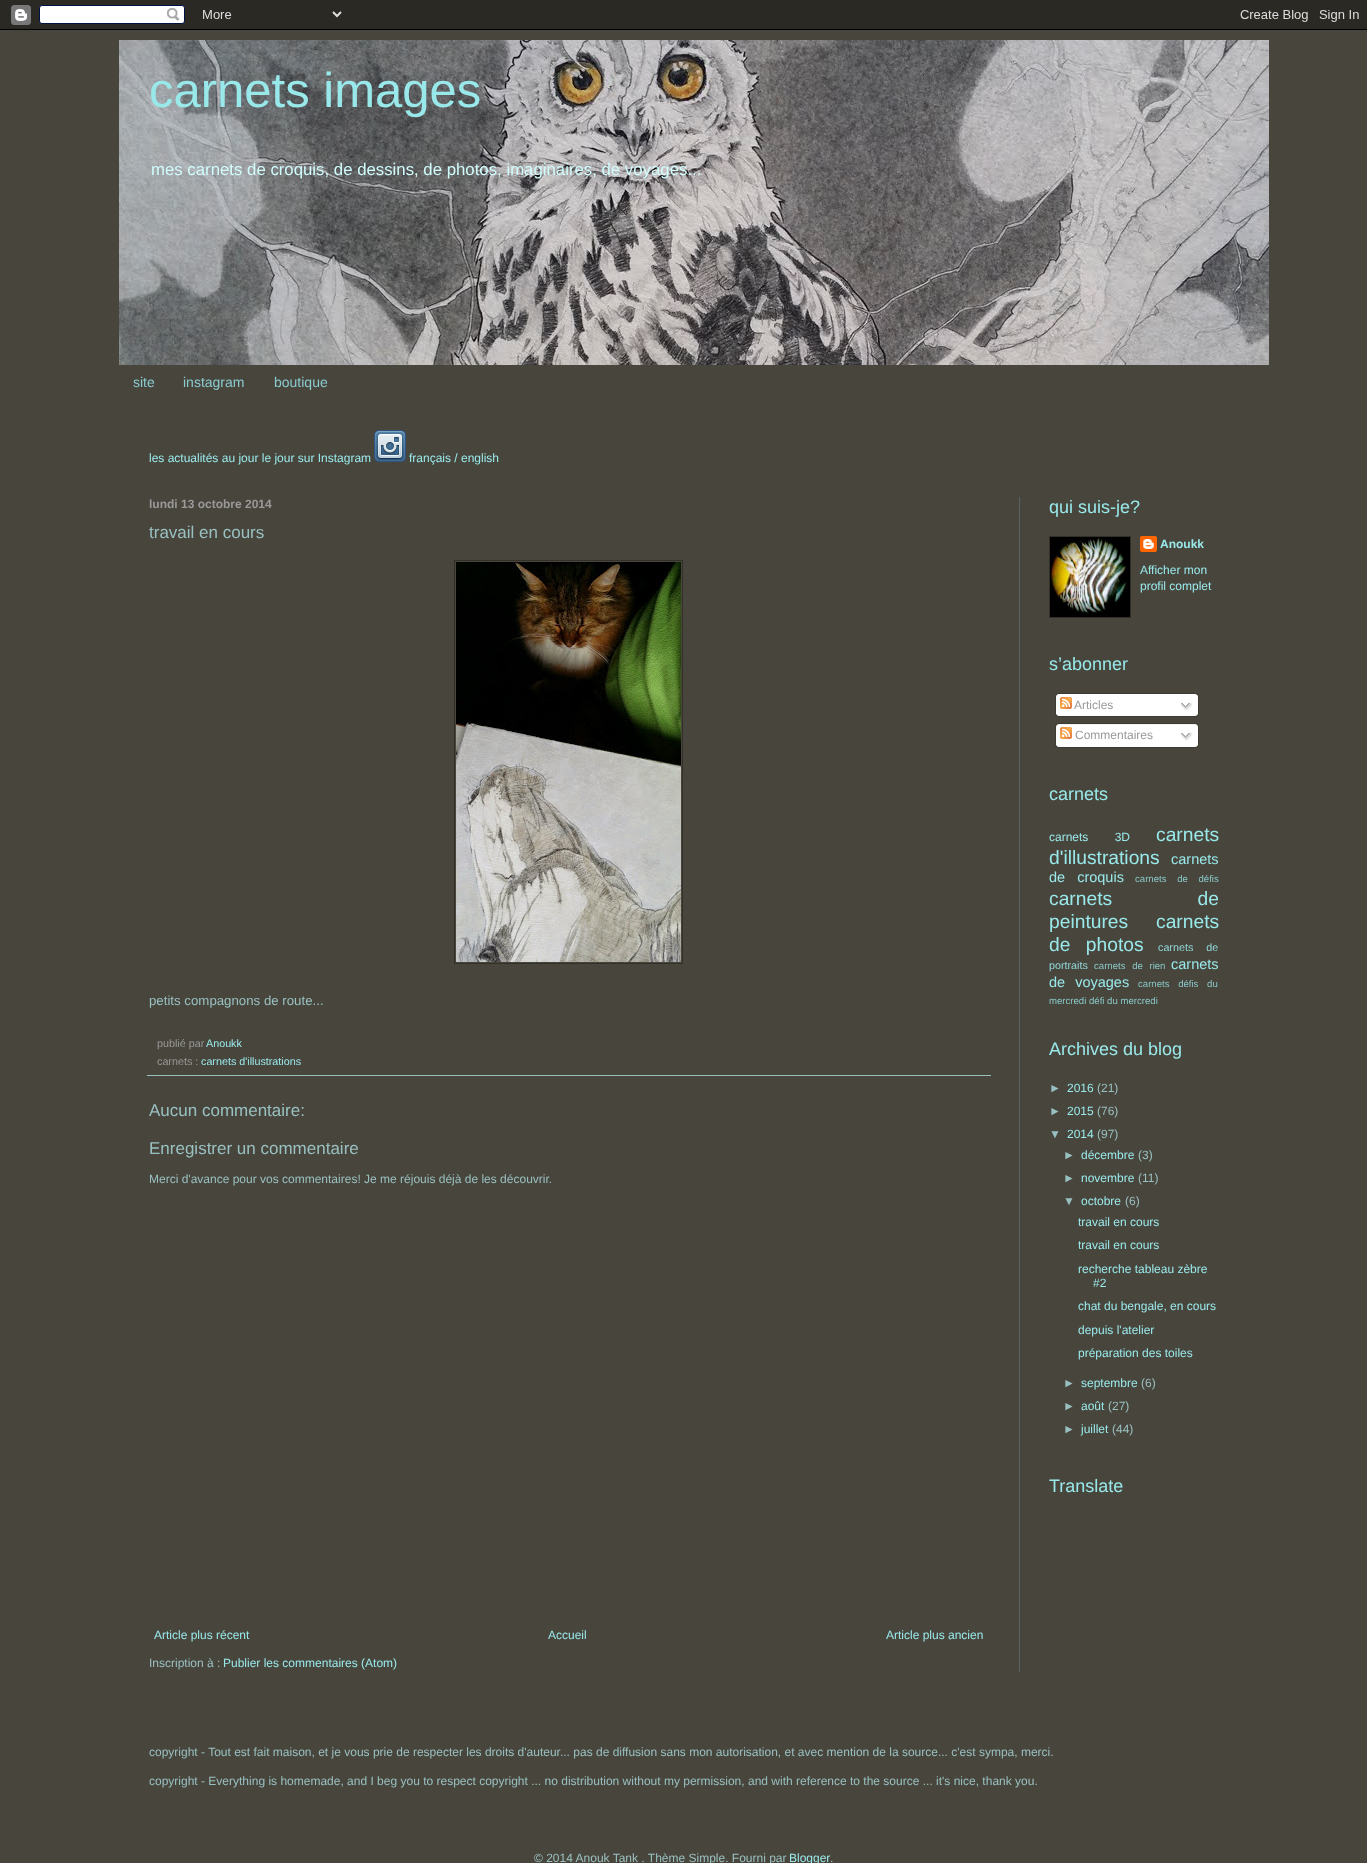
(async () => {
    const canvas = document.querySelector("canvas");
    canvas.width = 1367;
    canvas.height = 1863;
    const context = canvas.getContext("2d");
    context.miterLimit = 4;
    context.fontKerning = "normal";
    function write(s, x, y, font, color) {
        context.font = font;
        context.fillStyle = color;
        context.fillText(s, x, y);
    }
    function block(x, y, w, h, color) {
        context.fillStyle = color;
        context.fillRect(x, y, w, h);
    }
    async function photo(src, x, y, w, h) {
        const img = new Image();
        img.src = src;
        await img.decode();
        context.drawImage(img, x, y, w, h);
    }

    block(0, 0, 1367, 1863, "rgb(72, 69, 60)");
    await photo("media/1.png", 0, 0, 1367, 30);
    await photo("media/2.png", 119, 40, 1150, 325);
    write("carnets images", 149, 107, "49px Liberation Sans", "rgb(153, 233, 235)");
    write("mes carnets de croquis, de dessins, de photos, imaginaires, de voyages...", 151, 175, "16.8px Liberation Sans", "rgb(208, 252, 252)");
    write("site", 133, 387, "14px Liberation Sans", "rgb(138, 203, 208)");
    write("instagram", 183, 387, "14px Liberation Sans", "rgb(138, 203, 208)");
    write("boutique", 274, 387, "14px Liberation Sans", "rgb(138, 203, 208)");
    write("les actualités au jour le jour sur Instagram", 149, 462, "12px Liberation Sans", "rgb(153, 233, 235)");
    await photo("media/3.png", 374, 430, 32, 32);
    write("français / english", 409, 462, "12px Liberation Sans", "rgb(153, 233, 235)");
    block(1019, 497, 1, 1175, "rgb(82, 102, 104)");
    write("lundi 13 octobre 2014", 149, 508, "bold 12px Liberation Sans", "rgb(153, 153, 153)");
    write("travail en cours", 149, 538, "17px Liberation Sans", "rgb(153, 192, 193)");
    context.strokeStyle = "rgb(51, 48, 41)";
    context.strokeRect(454.5, 560.5, 228, 403);
    await photo("media/4.png", 456, 562, 225, 400);
    write("petits compagnons de route...", 149, 1005, "13.25px Liberation Sans", "rgb(153, 192, 193)");
    block(147, 1075, 844, 1, "rgb(153, 192, 193)");
    write("publié par", 157, 1047, "10.75px Liberation Sans", "rgb(153, 153, 153)");
    write("Anoukk", 206, 1047, "10.75px Liberation Sans", "rgb(153, 233, 235)");
    write("carnets :", 157, 1065, "10.75px Liberation Sans", "rgb(153, 153, 153)");
    write("carnets d'illustrations", 201, 1065, "10.75px Liberation Sans", "rgb(153, 233, 235)");
    write("Aucun commentaire:", 149, 1116, "17px Liberation Sans", "rgb(153, 192, 193)");
    write("Enregistrer un commentaire", 149, 1154, "17px Liberation Sans", "rgb(153, 192, 193)");
    write("Merci d'avance pour vos commentaires! Je me réjouis déjà de les découvrir.", 149, 1183, "12px Liberation Sans", "rgb(153, 192, 193)");
    write("Article plus récent", 154, 1639, "12px Liberation Sans", "rgb(153, 233, 235)");
    write("Accueil", 548, 1639, "12px Liberation Sans", "rgb(153, 233, 235)");
    write("Article plus ancien", 886, 1639, "12px Liberation Sans", "rgb(153, 233, 235)");
    write("Inscription à :", 149, 1667, "12px Liberation Sans", "rgb(153, 192, 193)");
    write("Publier les commentaires (Atom)", 223, 1667, "12px Liberation Sans", "rgb(153, 233, 235)");
    write("qui suis-je?", 1049, 513, "18px Liberation Sans", "rgb(153, 233, 235)");
    context.strokeRect(1049.5, 536.5, 81, 81);
    await photo("media/5.png", 1050, 537, 80, 80);
    await photo("media/6.png", 1140, 536, 17, 16);
    write("Anoukk", 1160, 548, "bold 12px Liberation Sans", "rgb(153, 233, 235)");
    write("Afficher mon", 1140, 574, "12px Liberation Sans", "rgb(153, 233, 235)");
    write("profil complet", 1140, 590, "12px Liberation Sans", "rgb(153, 233, 235)");
    write("s’abonner", 1049, 670, "18px Liberation Sans", "rgb(153, 233, 235)");
    await photo("media/7.png", 1055, 693, 144, 21);
    await photo("media/8.png", 1060, 697, 12, 12);
    write("Articles", 1074, 709, "12px Liberation Sans", "rgb(153, 153, 153)");
    await photo("media/9.png", 1180, 702, 13, 9);
    await photo("media/10.png", 1055, 714, 144, 3);
    await photo("media/11.png", 1055, 723, 144, 22);
    await photo("media/8.png", 1060, 727, 12, 12);
    write("Commentaires", 1075, 739, "12px Liberation Sans", "rgb(153, 153, 153)");
    await photo("media/9.png", 1180, 732, 13, 9);
    await photo("media/10.png", 1055, 745, 144, 3);
    write("carnets", 1049, 800, "18px Liberation Sans", "rgb(153, 233, 235)");
    context.wordSpacing = "23px";
    write("carnets 3D", 1049, 841, "12px Liberation Sans", "rgb(153, 233, 235)");
    context.wordSpacing = "0px";
    write("carnets", 1156, 841, "19.25px Liberation Sans", "rgb(153, 233, 235)");
    write("d'illustrations", 1049, 864, "19.25px Liberation Sans", "rgb(153, 233, 235)");
    write("carnets", 1171, 864, "14.5px Liberation Sans", "rgb(153, 233, 235)");
    context.wordSpacing = "8px";
    write("de croquis", 1049, 882, "14.5px Liberation Sans", "rgb(153, 233, 235)");
    write("carnets de défis", 1135, 882, "9.6px Liberation Sans", "rgb(137, 200, 200)");
    context.wordSpacing = "80px";
    write("carnets de", 1049, 905, "19.25px Liberation Sans", "rgb(153, 233, 235)");
    context.wordSpacing = "0px";
    write("peintures", 1049, 928, "19.25px Liberation Sans", "rgb(153, 233, 235)");
    write("carnets", 1156, 928, "19.25px Liberation Sans", "rgb(153, 233, 235)");
    context.wordSpacing = "10px";
    write("de photos", 1049, 951, "19.25px Liberation Sans", "rgb(153, 233, 235)");
    write("carnets de", 1158, 951, "10.75px Liberation Sans", "rgb(145, 217, 218)");
    context.wordSpacing = "0px";
    write("portraits", 1049, 969, "10.75px Liberation Sans", "rgb(145, 217, 218)");
    context.wordSpacing = "4px";
    write("carnets de rien", 1094, 969, "9.6px Liberation Sans", "rgb(137, 200, 200)");
    context.wordSpacing = "0px";
    write("carnets", 1171, 969, "14.5px Liberation Sans", "rgb(153, 233, 235)");
    context.wordSpacing = "6px";
    write("de voyages", 1049, 987, "14.5px Liberation Sans", "rgb(153, 233, 235)");
    write("carnets défis du", 1138, 987, "9.6px Liberation Sans", "rgb(137, 200, 200)");
    context.wordSpacing = "0px";
    write("mercredi défi du mercredi", 1049, 1004, "9.6px Liberation Sans", "rgb(137, 200, 200)");
    write("Archives du blog", 1049, 1055, "18px Liberation Sans", "rgb(153, 233, 235)");
    write("►", 1049, 1092, "12px Liberation Sans", "rgb(153, 192, 193)");
    write("2016", 1067, 1092, "12px Liberation Sans", "rgb(153, 233, 235)");
    write("(21)", 1097, 1092, "12px Liberation Sans", "rgb(153, 192, 193)");
    write("►", 1049, 1115, "12px Liberation Sans", "rgb(153, 192, 193)");
    write("2015", 1067, 1115, "12px Liberation Sans", "rgb(153, 233, 235)");
    write("(76)", 1097, 1115, "12px Liberation Sans", "rgb(153, 192, 193)");
    write("▼", 1049, 1138, "12px Liberation Sans", "rgb(153, 192, 193)");
    write("2014", 1067, 1138, "12px Liberation Sans", "rgb(153, 233, 235)");
    write("(97)", 1097, 1138, "12px Liberation Sans", "rgb(153, 192, 193)");
    write("►", 1063, 1159, "12px Liberation Sans", "rgb(153, 192, 193)");
    write("décembre", 1081, 1159, "12px Liberation Sans", "rgb(153, 233, 235)");
    write("(3)", 1138, 1159, "12px Liberation Sans", "rgb(153, 192, 193)");
    write("►", 1063, 1182, "12px Liberation Sans", "rgb(153, 192, 193)");
    write("novembre", 1081, 1182, "12px Liberation Sans", "rgb(153, 233, 235)");
    write("(11)", 1138, 1182, "12px Liberation Sans", "rgb(153, 192, 193)");
    write("▼", 1063, 1205, "12px Liberation Sans", "rgb(153, 192, 193)");
    write("octobre", 1081, 1205, "12px Liberation Sans", "rgb(153, 233, 235)");
    write("(6)", 1125, 1205, "12px Liberation Sans", "rgb(153, 192, 193)");
    write("travail en cours", 1078, 1226, "12px Liberation Sans", "rgb(153, 233, 235)");
    write("travail en cours", 1078, 1249, "12px Liberation Sans", "rgb(153, 233, 235)");
    write("recherche tableau zèbre", 1078, 1273, "12px Liberation Sans", "rgb(153, 233, 235)");
    write("#2", 1093, 1287, "12px Liberation Sans", "rgb(153, 233, 235)");
    write("chat du bengale, en cours", 1078, 1310, "12px Liberation Sans", "rgb(153, 233, 235)");
    write("depuis l'atelier", 1078, 1334, "12px Liberation Sans", "rgb(153, 233, 235)");
    write("préparation des toiles", 1078, 1357, "12px Liberation Sans", "rgb(153, 233, 235)");
    write("►", 1063, 1387, "12px Liberation Sans", "rgb(153, 192, 193)");
    write("septembre", 1081, 1387, "12px Liberation Sans", "rgb(153, 233, 235)");
    write("(6)", 1141, 1387, "12px Liberation Sans", "rgb(153, 192, 193)");
    write("►", 1063, 1410, "12px Liberation Sans", "rgb(153, 192, 193)");
    write("août", 1081, 1410, "12px Liberation Sans", "rgb(153, 233, 235)");
    write("(27)", 1108, 1410, "12px Liberation Sans", "rgb(153, 192, 193)");
    write("►", 1063, 1433, "12px Liberation Sans", "rgb(153, 192, 193)");
    write("juillet", 1081, 1433, "12px Liberation Sans", "rgb(153, 233, 235)");
    write("(44)", 1112, 1433, "12px Liberation Sans", "rgb(153, 192, 193)");
    write("Translate", 1049, 1492, "18px Liberation Sans", "rgb(153, 233, 235)");
    write("copyright - Tout est fait maison, et je vous prie de respecter les droits d'auteur... pas de diffusion sans mon autorisation, et avec mention de la source... c'est sympa, merci.", 149, 1756, "12px Liberation Sans", "rgb(153, 192, 193)");
    write("copyright - Everything is homemade, and I beg you to respect copyright ... no distribution without my permission, and with reference to the source ... it's nice, thank you.", 149, 1785, "12px Liberation Sans", "rgb(153, 192, 193)");
    write("© 2014 Anouk Tank . Thème Simple. Fourni par", 534, 1862, "12px Liberation Sans", "rgb(153, 192, 193)");
    write("Blogger", 789, 1862, "12px Liberation Sans", "rgb(153, 233, 235)");
    write(".", 830, 1862, "12px Liberation Sans", "rgb(153, 192, 193)");
})();
